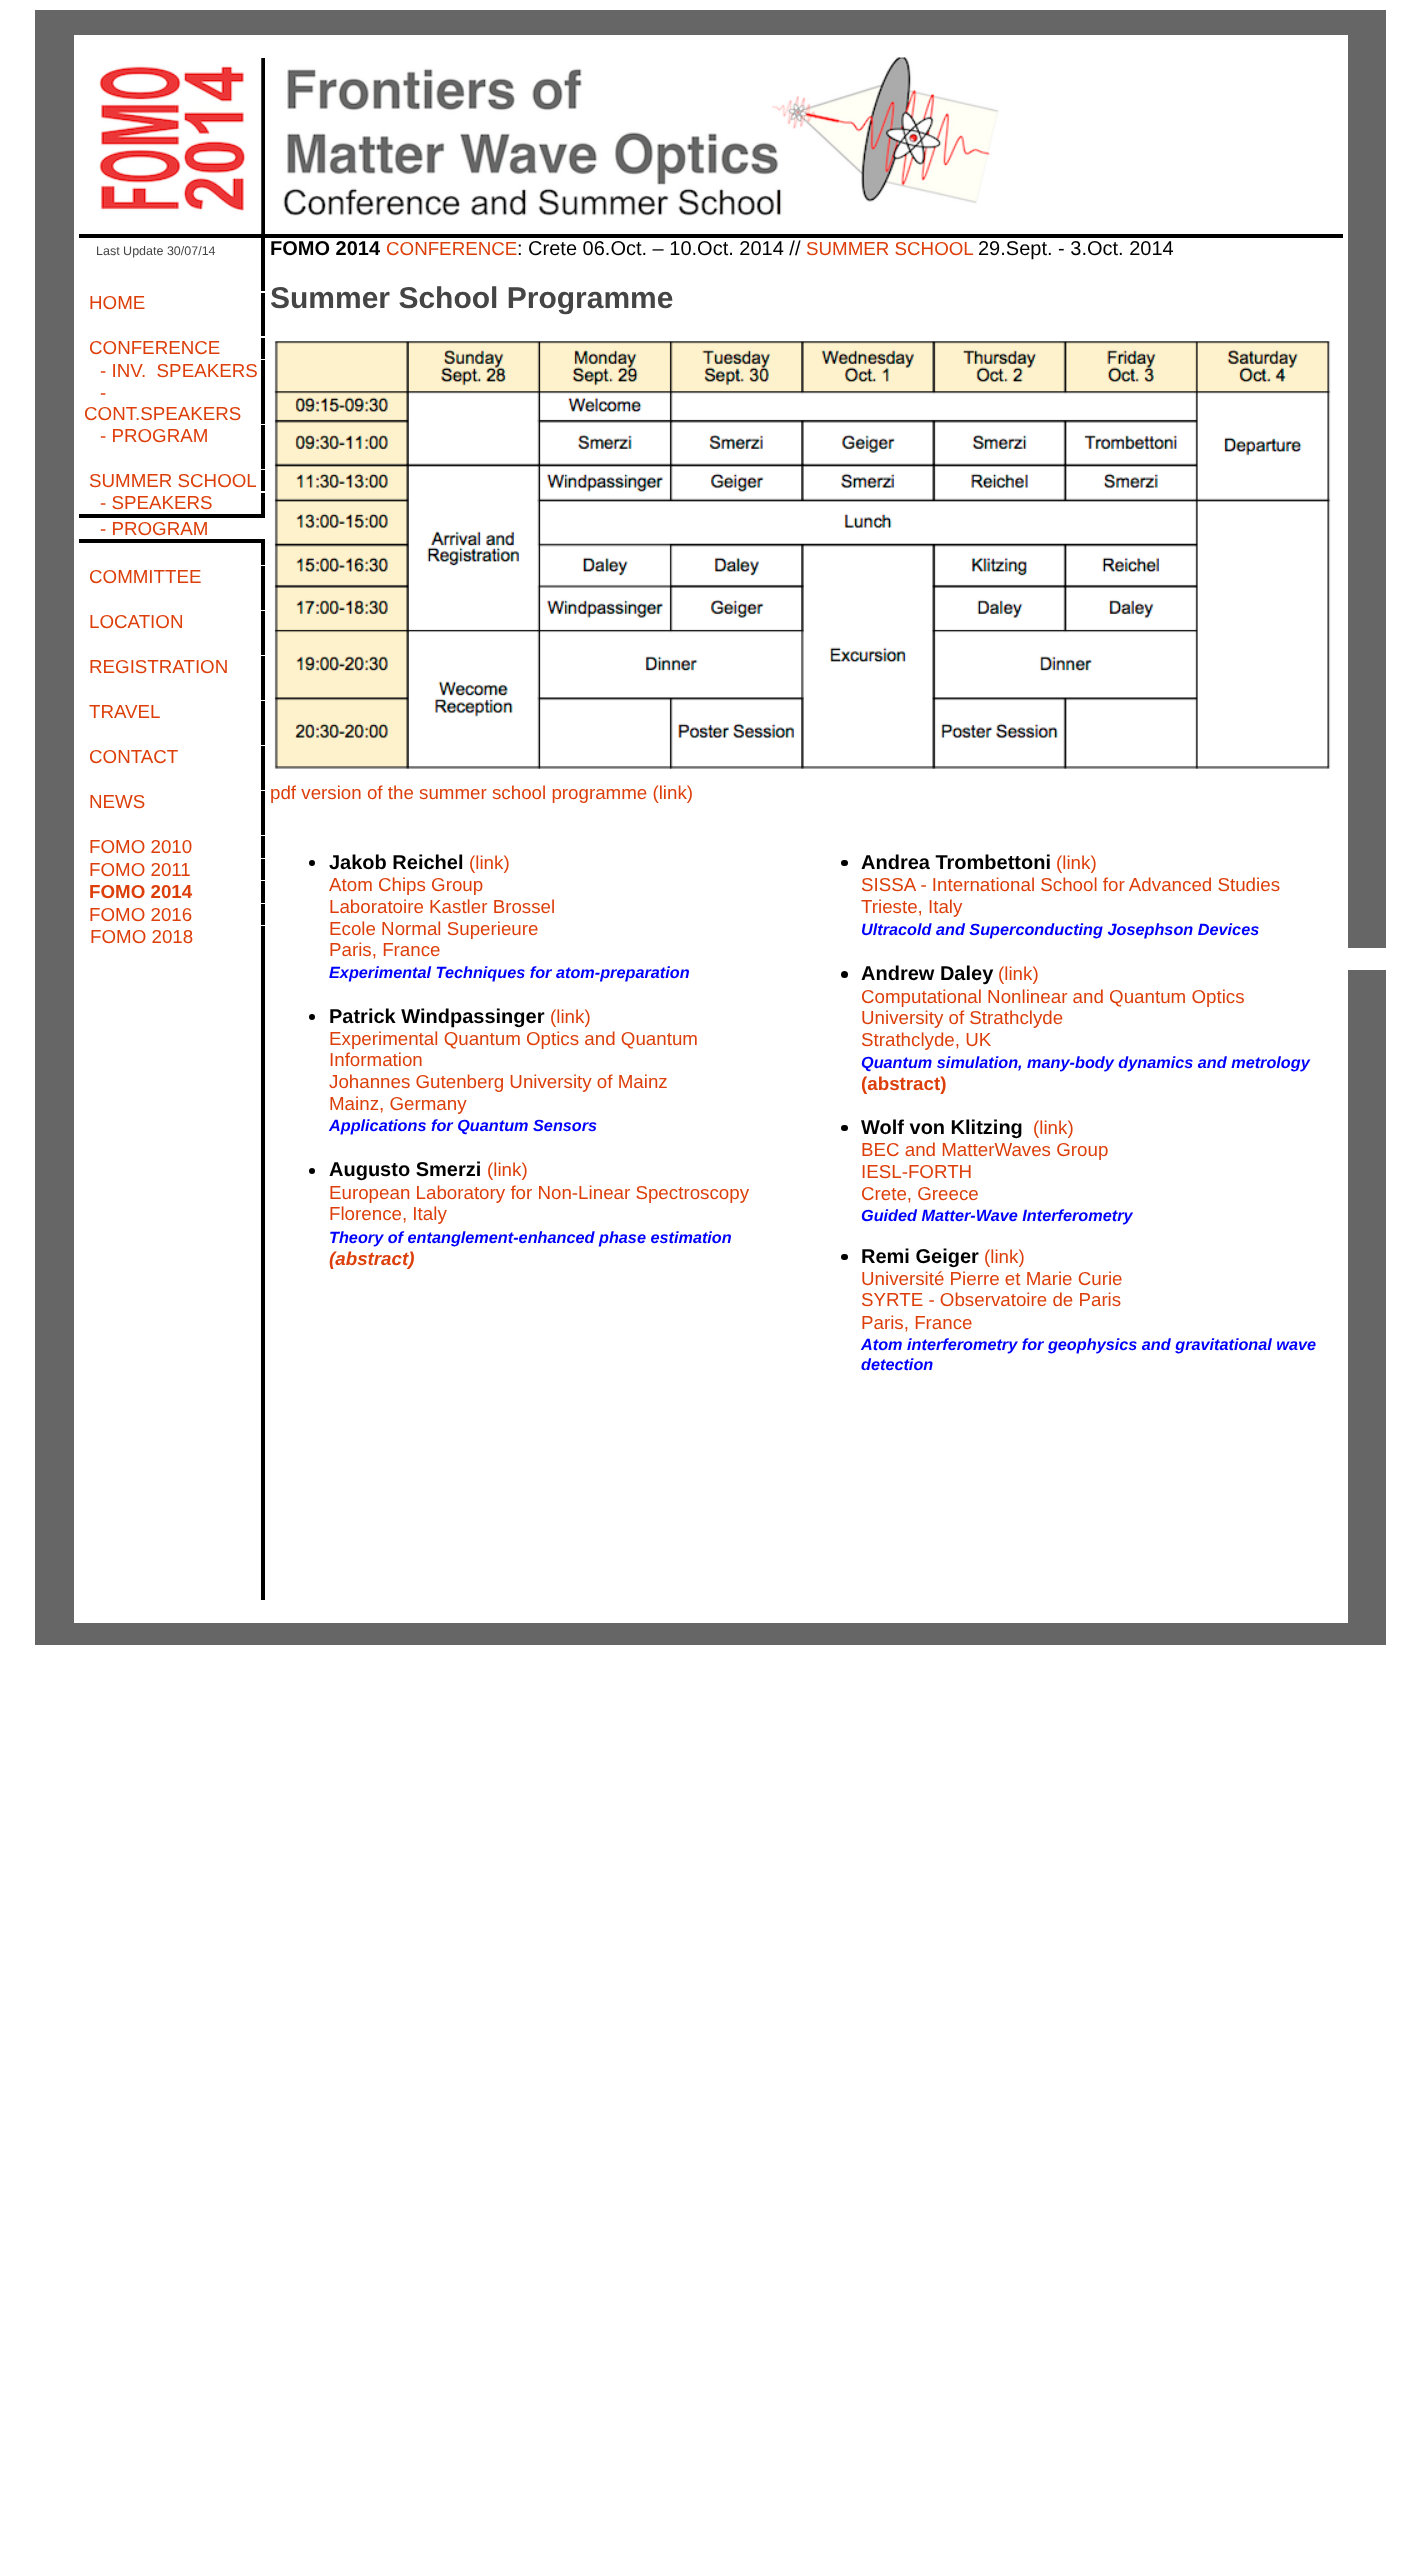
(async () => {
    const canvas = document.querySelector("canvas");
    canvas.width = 1421;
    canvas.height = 2575;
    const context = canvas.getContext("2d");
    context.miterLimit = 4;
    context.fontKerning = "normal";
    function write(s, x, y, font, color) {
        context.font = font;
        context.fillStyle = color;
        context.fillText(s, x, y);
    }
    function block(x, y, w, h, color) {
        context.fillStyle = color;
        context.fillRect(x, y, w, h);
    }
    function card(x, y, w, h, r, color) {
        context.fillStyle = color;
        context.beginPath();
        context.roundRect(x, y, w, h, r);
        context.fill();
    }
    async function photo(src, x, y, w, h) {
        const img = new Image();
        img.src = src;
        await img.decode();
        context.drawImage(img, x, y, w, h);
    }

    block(0, 0, 1421, 2575, "rgb(255, 255, 255)");
    block(35, 10, 1351, 25, "rgb(102, 102, 102)");
    block(35, 35, 39, 1588, "rgb(102, 102, 102)");
    block(1348, 35, 38, 913, "rgb(102, 102, 102)");
    await photo("media/1.png", 283, 57, 716, 159);
    block(261, 58, 4, 233, "rgb(0, 0, 0)");
    block(79, 234, 1264, 4, "rgb(0, 0, 0)");
    await photo("media/2.png", 99, 58, 163, 176);
    write("Last Update 30/07/14", 96, 255, "12.5px Liberation Sans", "rgb(69, 69, 69)");
    write("FOMO 2014", 270, 255, "bold 20px Liberation Sans", "rgb(0, 0, 0)");
    write("CONFERENCE", 386, 255, "18.75px Liberation Sans", "rgb(221, 63, 11)");
    write(": Crete 06.Oct. – 10.Oct. 2014 //", 517, 255, "20px Liberation Sans", "rgb(0, 0, 0)");
    write("SUMMER SCHOOL", 806, 255, "18.75px Liberation Sans", "rgb(221, 63, 11)");
    write("29.Sept. - 3.Oct. 2014", 978, 255, "20px Liberation Sans", "rgb(0, 0, 0)");
    write("Summer School Programme", 270, 308, "bold 30px Liberation Sans", "rgb(69, 69, 69)");
    await photo("media/3.png", 274, 341, 1057, 428);
    write("pdf version of the summer school programme (link)", 270, 799, "18.75px Liberation Sans", "rgb(221, 63, 11)");
    context.fillStyle = "rgb(0, 0, 0)";
    context.beginPath();
    context.arc(312, 863, 3, 0, Math.PI * 2);
    context.fill();
    write("Jakob Reichel", 329, 869, "bold 20px Liberation Sans", "rgb(0, 0, 0)");
    write("(link)", 469, 869, "18.75px Liberation Sans", "rgb(221, 63, 11)");
    write("Atom Chips Group", 329, 891, "18.75px Liberation Sans", "rgb(221, 63, 11)");
    write("Laboratoire Kastler Brossel", 329, 913, "18.75px Liberation Sans", "rgb(221, 63, 11)");
    write("Ecole Normal Superieure", 329, 935, "18.75px Liberation Sans", "rgb(221, 63, 11)");
    write("Paris, France", 329, 956, "18.75px Liberation Sans", "rgb(221, 63, 11)");
    write("Experimental Techniques for atom-preparation", 329, 978, "italic bold 16.25px Liberation Sans", "rgb(0, 0, 255)");
    context.fillStyle = "rgb(0, 0, 0)";
    context.beginPath();
    context.arc(312, 1017, 3, 0, Math.PI * 2);
    context.fill();
    write("Patrick Windpassinger", 329, 1023, "bold 20px Liberation Sans", "rgb(0, 0, 0)");
    write("(link)", 550, 1023, "18.75px Liberation Sans", "rgb(221, 63, 11)");
    write("Experimental Quantum Optics and Quantum", 329, 1045, "18.75px Liberation Sans", "rgb(221, 63, 11)");
    write("Information", 329, 1066, "18.75px Liberation Sans", "rgb(221, 63, 11)");
    write("Johannes Gutenberg University of Mainz", 329, 1088, "18.75px Liberation Sans", "rgb(221, 63, 11)");
    write("Mainz, Germany", 329, 1110, "18.75px Liberation Sans", "rgb(221, 63, 11)");
    write("Applications for Quantum Sensors", 329, 1131, "italic bold 16.25px Liberation Sans", "rgb(0, 0, 255)");
    context.fillStyle = "rgb(0, 0, 0)";
    context.beginPath();
    context.arc(312, 1171, 3, 0, Math.PI * 2);
    context.fill();
    write("Augusto Smerzi", 329, 1176, "bold 20px Liberation Sans", "rgb(0, 0, 0)");
    write("(link)", 487, 1176, "18.75px Liberation Sans", "rgb(221, 63, 11)");
    write("European Laboratory for Non-Linear Spectroscopy", 329, 1199, "18.75px Liberation Sans", "rgb(221, 63, 11)");
    write("Florence, Italy", 329, 1220, "18.75px Liberation Sans", "rgb(221, 63, 11)");
    write("Theory of entanglement-enhanced phase estimation", 329, 1243, "italic bold 16.25px Liberation Sans", "rgb(0, 0, 255)");
    write("(abstract)", 329, 1265, "italic bold 18.75px Liberation Sans", "rgb(221, 63, 11)");
    card(841, 860, 7, 6, 3, "rgb(0, 0, 0)");
    write("Andrea Trombettoni", 861, 869, "bold 20px Liberation Sans", "rgb(0, 0, 0)");
    write("(link)", 1056, 869, "18.75px Liberation Sans", "rgb(221, 63, 11)");
    write("SISSA - International School for Advanced Studies", 861, 891, "18.75px Liberation Sans", "rgb(221, 63, 11)");
    write("Trieste, Italy", 861, 913, "18.75px Liberation Sans", "rgb(221, 63, 11)");
    write("Ultracold and Superconducting Josephson Devices", 861, 935, "italic bold 16.25px Liberation Sans", "rgb(0, 0, 255)");
    context.fillStyle = "rgb(0, 0, 0)";
    context.beginPath();
    context.arc(844.5, 974.5, 3.5, 0, Math.PI * 2);
    context.fill();
    write("Andrew Daley", 861, 980, "bold 20px Liberation Sans", "rgb(0, 0, 0)");
    write("(link)", 998, 980, "18.75px Liberation Sans", "rgb(221, 63, 11)");
    write("Computational Nonlinear and Quantum Optics", 861, 1003, "18.75px Liberation Sans", "rgb(221, 63, 11)");
    write("University of Strathclyde", 861, 1024, "18.75px Liberation Sans", "rgb(221, 63, 11)");
    write("Strathclyde, UK", 861, 1046, "18.75px Liberation Sans", "rgb(221, 63, 11)");
    write("Quantum simulation, many-body dynamics and metrology", 861, 1068, "italic bold 16.25px Liberation Sans", "rgb(0, 0, 255)");
    write("(abstract)", 861, 1090, "bold 18.75px Liberation Sans", "rgb(221, 63, 11)");
    card(841, 1125, 7, 6, 3, "rgb(0, 0, 0)");
    write("Wolf von Klitzing", 861, 1134, "bold 20px Liberation Sans", "rgb(0, 0, 0)");
    write("(link)", 1033, 1134, "18.75px Liberation Sans", "rgb(221, 63, 11)");
    write("BEC and MatterWaves Group", 861, 1156, "18.75px Liberation Sans", "rgb(221, 63, 11)");
    write("IESL-FORTH", 861, 1178, "18.75px Liberation Sans", "rgb(221, 63, 11)");
    write("Crete, Greece", 861, 1200, "18.75px Liberation Sans", "rgb(221, 63, 11)");
    write("Guided Matter-Wave Interferometry", 861, 1221, "italic bold 16.25px Liberation Sans", "rgb(0, 0, 255)");
    card(841, 1254, 7, 6, 3, "rgb(0, 0, 0)");
    write("Remi Geiger", 861, 1263, "bold 20px Liberation Sans", "rgb(0, 0, 0)");
    write("(link)", 984, 1263, "18.75px Liberation Sans", "rgb(221, 63, 11)");
    write("Université Pierre et Marie Curie", 861, 1285, "18.75px Liberation Sans", "rgb(221, 63, 11)");
    write("SYRTE - Observatoire de Paris", 861, 1306, "18.75px Liberation Sans", "rgb(221, 63, 11)");
    write("Paris, France", 861, 1329, "18.75px Liberation Sans", "rgb(221, 63, 11)");
    write("Atom interferometry for geophysics and gravitational wave", 861, 1350, "italic bold 16.25px Liberation Sans", "rgb(0, 0, 255)");
    write("detection", 861, 1370, "italic bold 16.25px Liberation Sans", "rgb(0, 0, 255)");
    block(261, 293, 4, 43, "rgb(0, 0, 0)");
    write("HOME", 89, 309, "18.75px Liberation Sans", "rgb(221, 63, 11)");
    block(261, 338, 4, 21, "rgb(0, 0, 0)");
    write("CONFERENCE", 89, 354, "18.75px Liberation Sans", "rgb(221, 63, 11)");
    block(261, 360, 4, 64, "rgb(0, 0, 0)");
    write("- INV.  SPEAKERS", 100, 377, "18.75px Liberation Sans", "rgb(221, 63, 11)");
    write("-", 100, 399, "18.75px Liberation Sans", "rgb(221, 63, 11)");
    write("CONT.SPEAKERS", 84, 420, "18.75px Liberation Sans", "rgb(221, 63, 11)");
    block(261, 425, 4, 44, "rgb(0, 0, 0)");
    write("- PROGRAM", 100, 442, "18.75px Liberation Sans", "rgb(221, 63, 11)");
    block(261, 470, 4, 21, "rgb(0, 0, 0)");
    write("SUMMER SCHOOL", 89, 487, "18.75px Liberation Sans", "rgb(221, 63, 11)");
    block(261, 493, 4, 21, "rgb(0, 0, 0)");
    write("- SPEAKERS", 100, 509, "18.75px Liberation Sans", "rgb(221, 63, 11)");
    block(79, 514, 186, 4, "rgb(0, 0, 0)");
    block(79, 539, 186, 4, "rgb(0, 0, 0)");
    write("- PROGRAM", 100, 535, "18.75px Liberation Sans", "rgb(221, 63, 11)");
    block(261, 543, 4, 22, "rgb(0, 0, 0)");
    block(261, 566, 4, 44, "rgb(0, 0, 0)");
    write("COMMITTEE", 89, 583, "18.75px Liberation Sans", "rgb(221, 63, 11)");
    block(261, 611, 4, 44, "rgb(0, 0, 0)");
    write("LOCATION", 89, 628, "18.75px Liberation Sans", "rgb(221, 63, 11)");
    block(261, 656, 4, 44, "rgb(0, 0, 0)");
    write("REGISTRATION", 89, 673, "18.75px Liberation Sans", "rgb(221, 63, 11)");
    block(261, 701, 4, 44, "rgb(0, 0, 0)");
    write("TRAVEL", 89, 718, "18.75px Liberation Sans", "rgb(221, 63, 11)");
    block(261, 746, 4, 44, "rgb(0, 0, 0)");
    write("CONTACT", 89, 763, "18.75px Liberation Sans", "rgb(221, 63, 11)");
    block(261, 791, 4, 44, "rgb(0, 0, 0)");
    write("NEWS", 89, 808, "18.75px Liberation Sans", "rgb(221, 63, 11)");
    block(261, 836, 4, 22, "rgb(0, 0, 0)");
    write("FOMO 2010", 89, 853, "18.75px Liberation Sans", "rgb(221, 63, 11)");
    block(261, 859, 4, 21, "rgb(0, 0, 0)");
    write("FOMO 2011", 89, 876, "18.75px Liberation Sans", "rgb(221, 63, 11)");
    block(261, 881, 4, 22, "rgb(0, 0, 0)");
    write("FOMO 2014", 89, 898, "bold 18.75px Liberation Sans", "rgb(221, 63, 11)");
    block(261, 904, 4, 21, "rgb(0, 0, 0)");
    write("FOMO 2016", 89, 921, "18.75px Liberation Sans", "rgb(221, 63, 11)");
    block(261, 926, 4, 674, "rgb(0, 0, 0)");
    write("FOMO 2018", 90, 943, "18.75px Liberation Sans", "rgb(221, 63, 11)");
    block(1348, 970, 38, 653, "rgb(102, 102, 102)");
    block(35, 1623, 1351, 22, "rgb(102, 102, 102)");
})();
